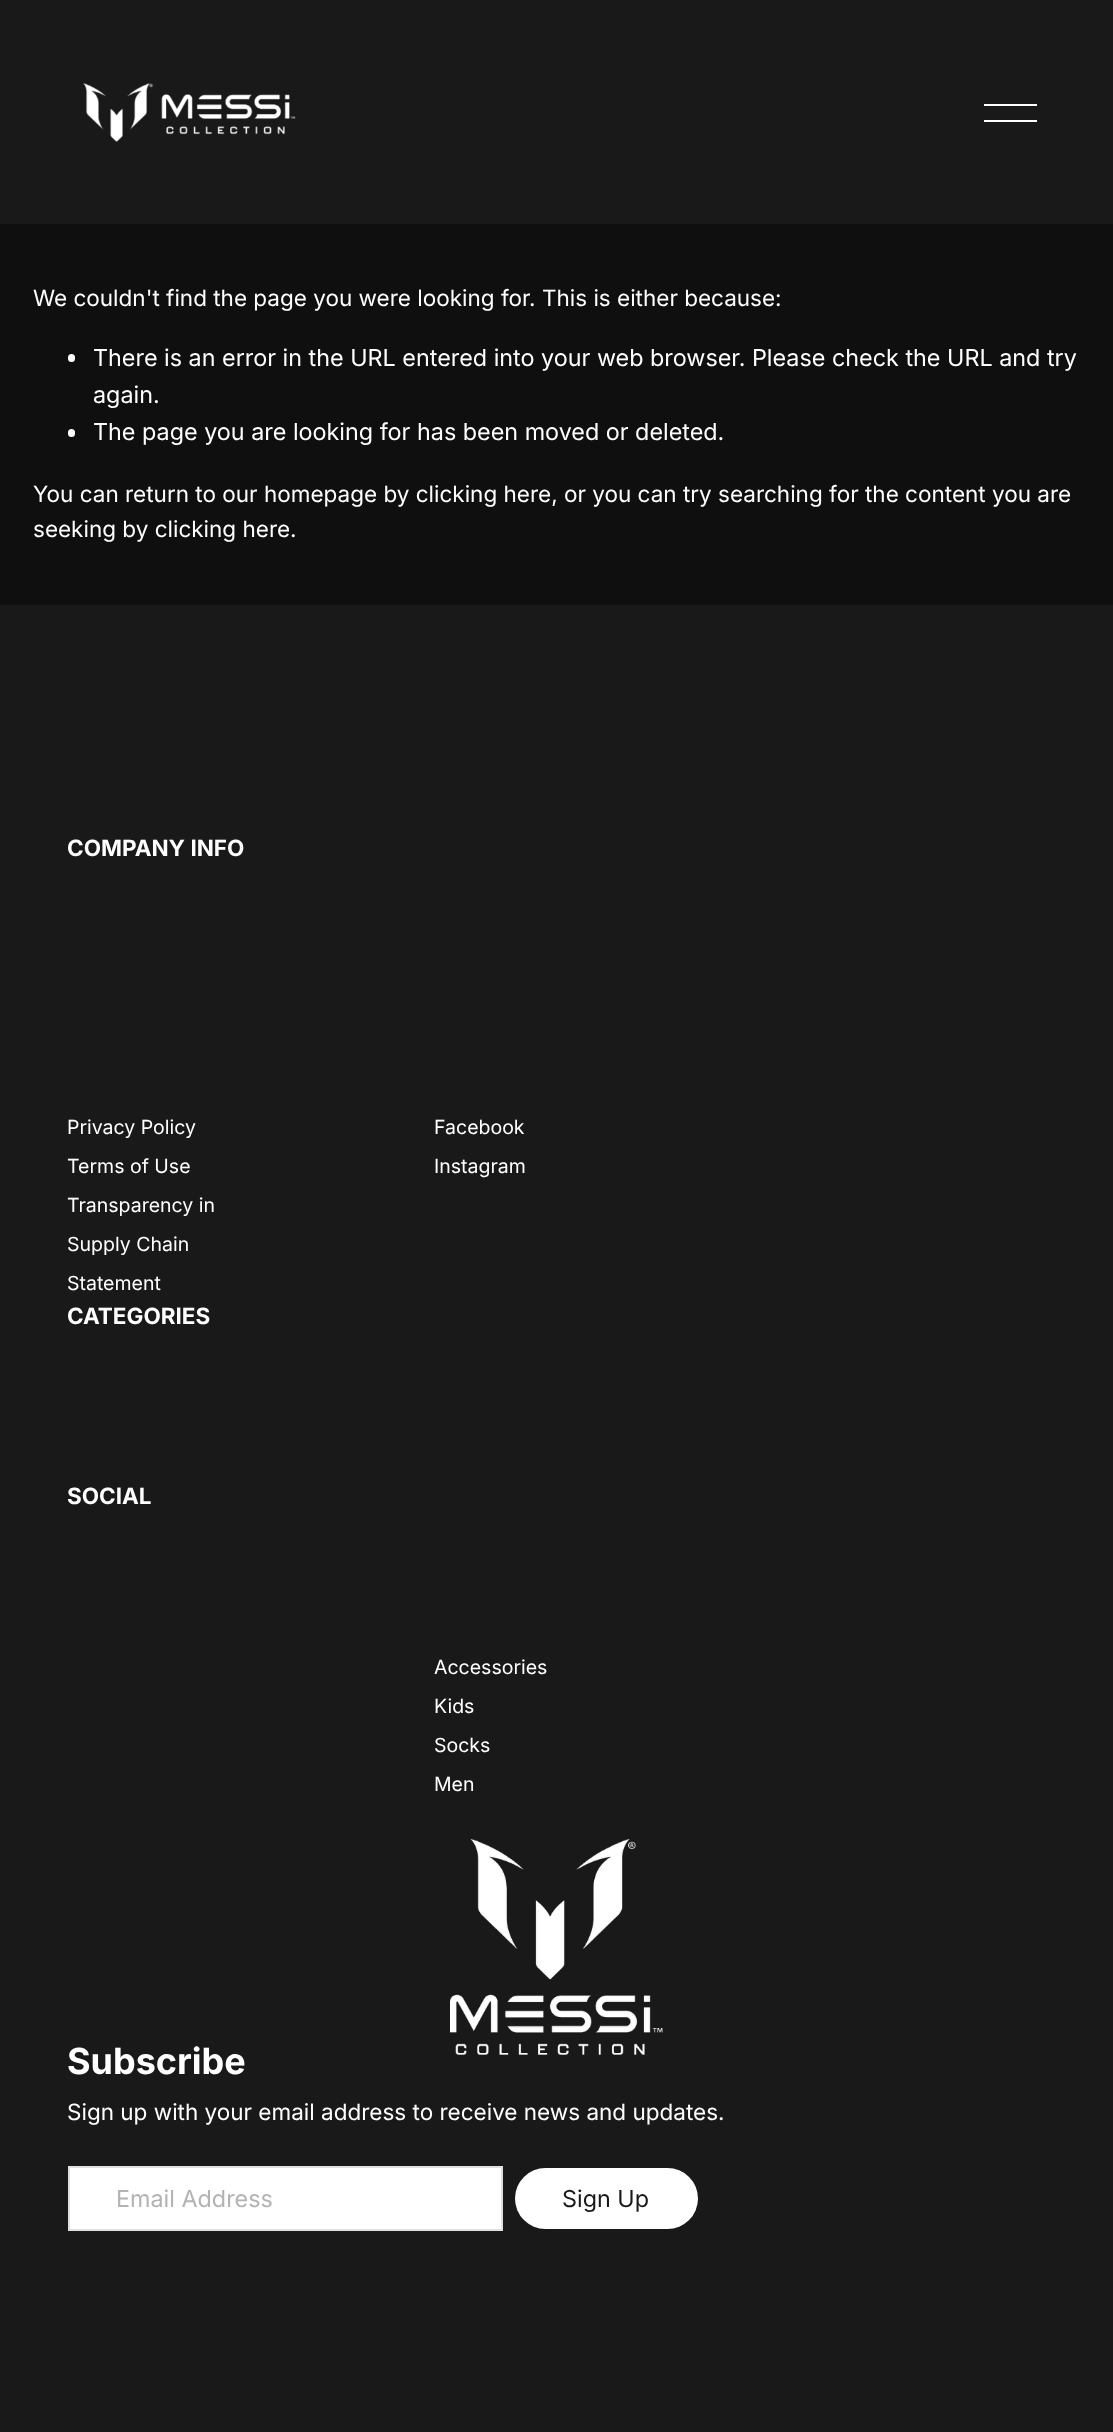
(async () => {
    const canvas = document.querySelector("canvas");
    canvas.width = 1113;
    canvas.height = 2432;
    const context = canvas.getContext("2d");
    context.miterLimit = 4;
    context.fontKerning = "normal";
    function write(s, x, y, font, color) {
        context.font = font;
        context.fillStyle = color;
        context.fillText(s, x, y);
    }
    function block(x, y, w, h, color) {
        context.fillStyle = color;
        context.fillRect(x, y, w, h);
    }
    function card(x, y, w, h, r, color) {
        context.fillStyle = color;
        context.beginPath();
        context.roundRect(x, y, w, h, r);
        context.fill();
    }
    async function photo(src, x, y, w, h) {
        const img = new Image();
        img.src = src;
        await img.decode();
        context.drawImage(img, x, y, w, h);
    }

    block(0, 0, 1113, 2432, "rgb(15, 15, 15)");
    block(0, 0, 1113, 224, "rgb(25, 25, 25)");
    await photo("media/1.png", 83, 83, 213, 60);
    block(984, 104, 53, 2, "rgb(255, 255, 255)");
    block(984, 120, 53, 2, "rgb(255, 255, 255)");
    write("We couldn't find the page you were looking for. This is either because:", 33, 306, "22.5px Inter", "rgb(255, 255, 255)");
    card(68, 354, 7, 8, 3.5, "rgb(255, 255, 255)");
    write("There is an error in the URL entered into your web browser. Please check the URL and try", 93, 366, "23.35px Inter", "rgb(255, 255, 255)");
    write("again.", 93, 403, "23.35px Inter", "rgb(255, 255, 255)");
    card(68, 429, 7, 8, 3.5, "rgb(255, 255, 255)");
    write("The page you are looking for has been moved or deleted.", 93, 440, "23.35px Inter", "rgb(255, 255, 255)");
    write("You can return to our homepage by clicking here, or you can try searching for the content you are", 33, 502, "22.5px Inter", "rgb(255, 255, 255)");
    write("seeking by clicking here.", 33, 537, "22.5px Inter", "rgb(255, 255, 255)");
    block(0, 605, 1113, 1827, "rgb(25, 25, 25)");
    write("COMPANY INFO", 67, 856, "bold 22.5px Inter", "rgb(255, 255, 255)");
    write("Privacy Policy", 67, 1134, "19.5px Inter", "rgb(255, 255, 255)");
    write("Terms of Use", 67, 1173, "19.5px Inter", "rgb(255, 255, 255)");
    write("Transparency in", 67, 1212, "19.5px Inter", "rgb(255, 255, 255)");
    write("Supply Chain", 67, 1251, "19.5px Inter", "rgb(255, 255, 255)");
    write("Statement", 67, 1290, "19.5px Inter", "rgb(255, 255, 255)");
    write("Facebook", 434, 1134, "19.5px Inter", "rgb(255, 255, 255)");
    write("Instagram", 434, 1173, "19.5px Inter", "rgb(255, 255, 255)");
    write("CATEGORIES", 67, 1324, "bold 22.5px Inter", "rgb(255, 255, 255)");
    write("SOCIAL", 67, 1504, "bold 22.5px Inter", "rgb(255, 255, 255)");
    write("Accessories", 434, 1674, "19.5px Inter", "rgb(255, 255, 255)");
    write("Kids", 434, 1713, "19.5px Inter", "rgb(255, 255, 255)");
    write("Socks", 434, 1752, "19.5px Inter", "rgb(255, 255, 255)");
    write("Men", 434, 1791, "19.5px Inter", "rgb(255, 255, 255)");
    await photo("media/2.png", 450, 1839, 213, 216);
    write("Subscribe", 67, 2074, "bold 36px Inter", "rgb(255, 255, 255)");
    write("Sign up with your email address to receive news and updates.", 67, 2120, "22.5px Inter", "rgb(255, 255, 255)");
    context.beginPath();
    context.rect(69, 2167, 433, 63);
    context.fill();
    context.strokeStyle = "rgb(224, 224, 224)";
    context.lineWidth = 2;
    context.stroke();
    write("Email Address", 116, 2207, "23.35px Inter", "rgb(179, 179, 179)");
    card(515, 2168, 183, 61, 30.5, "rgb(255, 255, 255)");
    write("Sign Up", 562, 2207, "23.35px Inter", "rgb(25, 25, 25)");
})();
